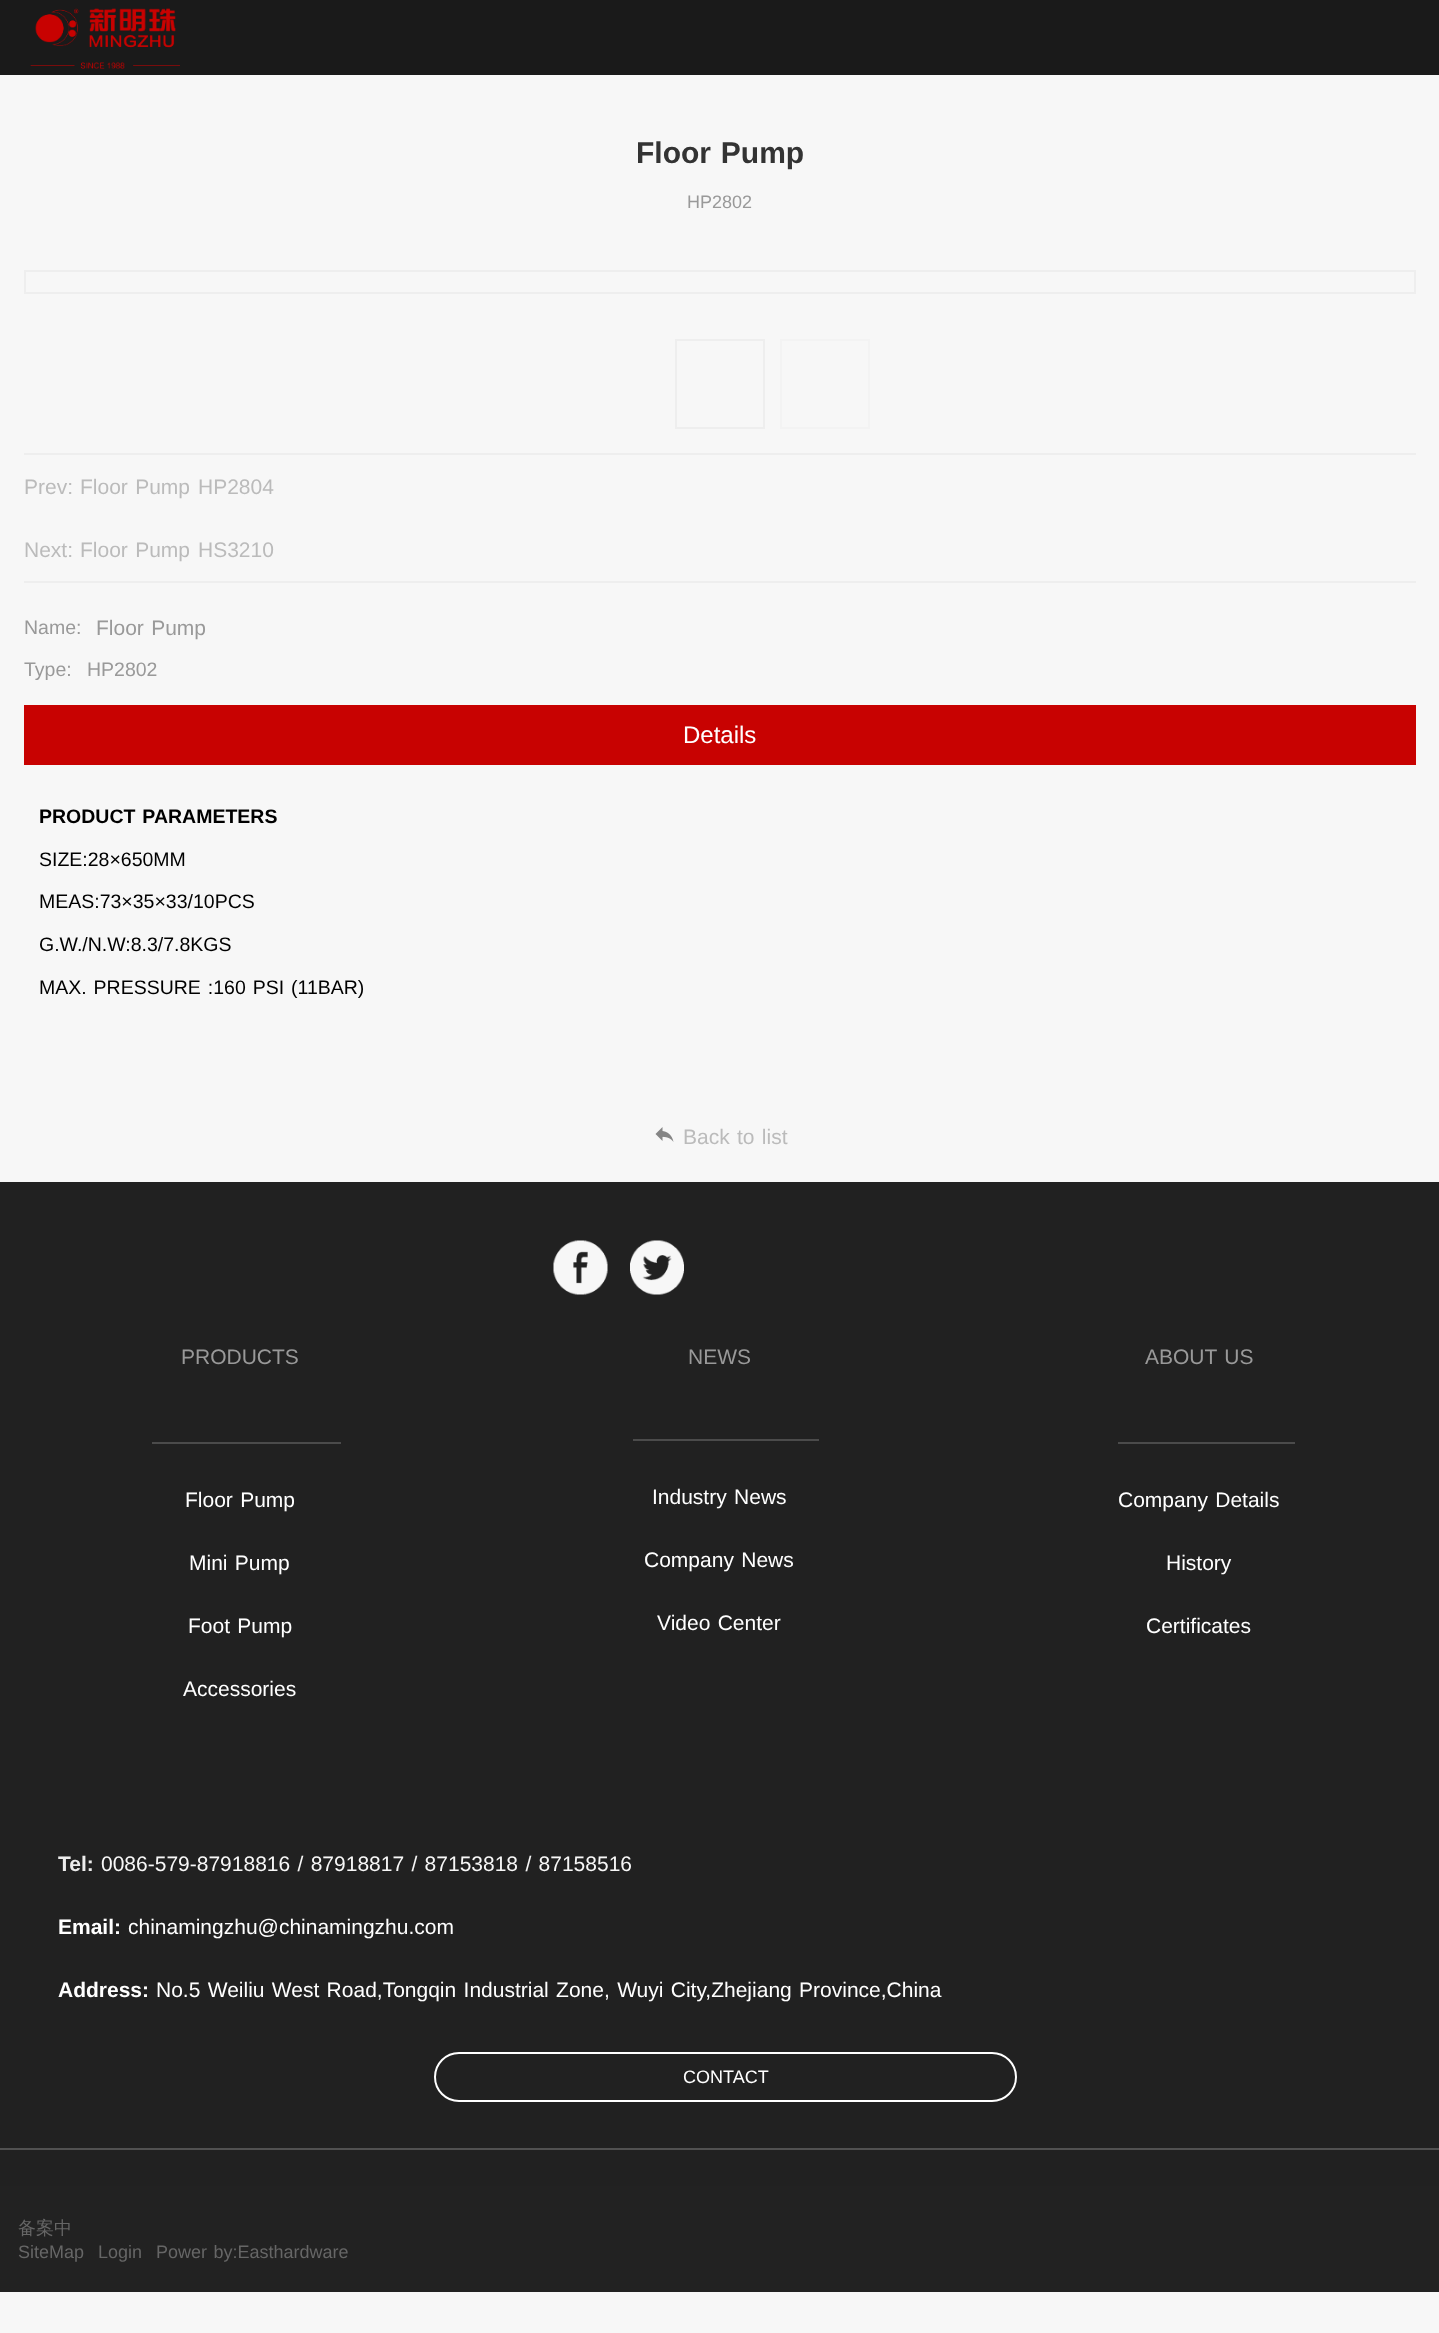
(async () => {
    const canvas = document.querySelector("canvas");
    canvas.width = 1439;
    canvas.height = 2333;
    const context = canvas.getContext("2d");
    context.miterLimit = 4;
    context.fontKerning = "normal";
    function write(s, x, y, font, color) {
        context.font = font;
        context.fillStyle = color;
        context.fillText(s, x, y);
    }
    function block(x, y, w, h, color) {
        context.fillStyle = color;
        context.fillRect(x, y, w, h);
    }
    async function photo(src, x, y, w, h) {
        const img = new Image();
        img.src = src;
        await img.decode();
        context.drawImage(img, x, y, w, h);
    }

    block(0, 0, 1439, 2333, "rgb(247, 247, 247)");
    block(0, 0, 1439, 75, "rgb(26, 26, 26)");
    await photo("media/1.png", 30, 8, 150, 61);
    context.wordSpacing = "1.5px";
    write("Floor Pump", 636, 163, "bold 30px Liberation Sans", "rgb(51, 51, 51)");
    context.wordSpacing = "0px";
    write("HP2802", 687, 208, "18px Liberation Sans", "rgb(153, 153, 153)");
    context.strokeStyle = "rgb(238, 238, 238)";
    context.lineWidth = 2;
    context.strokeRect(25, 271, 1390, 22);
    context.strokeRect(676, 340, 88, 88);
    context.strokeStyle = "rgb(243, 243, 243)";
    context.strokeRect(781, 340, 88, 88);
    block(24, 453, 1392, 2, "rgb(238, 238, 238)");
    block(24, 581, 1392, 2, "rgb(238, 238, 238)");
    write("Prev:", 24, 494, "21px Liberation Sans", "rgb(187, 187, 187)");
    context.wordSpacing = "1.5px";
    write("Floor Pump", 80, 494, "21px Liberation Sans", "rgb(187, 187, 187)");
    context.wordSpacing = "0px";
    write("HP2804", 198, 494, "21px Liberation Sans", "rgb(187, 187, 187)");
    write("Next:", 24, 557, "21px Liberation Sans", "rgb(187, 187, 187)");
    context.wordSpacing = "1.5px";
    write("Floor Pump", 80, 557, "21px Liberation Sans", "rgb(187, 187, 187)");
    context.wordSpacing = "0px";
    write("HS3210", 198, 557, "21px Liberation Sans", "rgb(187, 187, 187)");
    write("Name:", 24, 634, "19.5px Liberation Sans", "rgb(153, 153, 153)");
    context.wordSpacing = "1.5px";
    write("Floor Pump", 96, 635, "21px Liberation Sans", "rgb(153, 153, 153)");
    context.wordSpacing = "0px";
    write("Type:", 24, 676, "19.5px Liberation Sans", "rgb(153, 153, 153)");
    write("HP2802", 87, 676, "19.5px Liberation Sans", "rgb(153, 153, 153)");
    block(24, 705, 1392, 60, "rgb(200, 2, 1)");
    write("Details", 683, 743, "24px Liberation Sans", "rgb(255, 255, 255)");
    context.wordSpacing = "1.5px";
    write("PRODUCT PARAMETERS", 39, 823, "bold 19.5px Liberation Sans", "rgb(0, 0, 0)");
    context.wordSpacing = "0px";
    write("SIZE:28×650MM", 39, 866, "19.5px Liberation Sans", "rgb(0, 0, 0)");
    write("MEAS:73×35×33/10PCS", 39, 908, "19.5px Liberation Sans", "rgb(0, 0, 0)");
    write("G.W./N.W:8.3/7.8KGS", 39, 951, "19.5px Liberation Sans", "rgb(0, 0, 0)");
    context.wordSpacing = "1.5px";
    write("MAX. PRESSURE :160 PSI (11BAR)", 39, 994, "19.5px Liberation Sans", "rgb(0, 0, 0)");
    await photo("media/2.png", 655, 1127, 19, 15);
    write("Back to list", 683, 1144, "21px Liberation Sans", "rgb(187, 187, 187)");
    block(0, 1182, 1439, 1004, "rgb(33, 33, 33)");
    await photo("media/3.png", 553, 1240, 55, 55);
    await photo("media/4.png", 630, 1240, 54, 55);
    context.wordSpacing = "0px";
    write("PRODUCTS", 181, 1364, "21px Liberation Sans", "rgb(153, 153, 153)");
    block(152, 1442, 189, 2, "rgb(75, 75, 75)");
    context.wordSpacing = "1.5px";
    write("Floor Pump", 185, 1507, "21px Liberation Sans", "rgb(255, 255, 255)");
    write("Mini Pump", 189, 1570, "21px Liberation Sans", "rgb(255, 255, 255)");
    write("Foot Pump", 188, 1633, "21px Liberation Sans", "rgb(255, 255, 255)");
    context.wordSpacing = "0px";
    write("Accessories", 183, 1696, "21px Liberation Sans", "rgb(255, 255, 255)");
    write("NEWS", 688, 1364, "21px Liberation Sans", "rgb(153, 153, 153)");
    block(633, 1439, 186, 2, "rgb(75, 75, 75)");
    context.wordSpacing = "1.5px";
    write("Industry News", 652, 1504, "21px Liberation Sans", "rgb(255, 255, 255)");
    write("Company News", 644, 1567, "21px Liberation Sans", "rgb(255, 255, 255)");
    write("Video Center", 657, 1630, "21px Liberation Sans", "rgb(255, 255, 255)");
    write("ABOUT US", 1145, 1364, "21px Liberation Sans", "rgb(153, 153, 153)");
    block(1118, 1442, 177, 2, "rgb(75, 75, 75)");
    write("Company Details", 1118, 1507, "21px Liberation Sans", "rgb(255, 255, 255)");
    context.wordSpacing = "0px";
    write("History", 1166, 1570, "21px Liberation Sans", "rgb(255, 255, 255)");
    write("Certificates", 1146, 1633, "21px Liberation Sans", "rgb(255, 255, 255)");
    write("Tel:", 58, 1871, "bold 21px Liberation Sans", "rgb(236, 236, 236)");
    context.wordSpacing = "1.5px";
    write("0086-579-87918816 / 87918817 / 87153818 / 87158516", 101, 1871, "21px Liberation Sans", "rgb(247, 247, 247)");
    context.wordSpacing = "0px";
    write("Email:", 58, 1934, "bold 21px Liberation Sans", "rgb(255, 255, 255)");
    write("chinamingzhu@chinamingzhu.com", 128, 1934, "21px Liberation Sans", "rgb(255, 255, 255)");
    write("Address:", 58, 1997, "bold 21px Liberation Sans", "rgb(255, 255, 255)");
    context.wordSpacing = "1.5px";
    write("No.5 Weiliu West Road,Tongqin Industrial Zone, Wuyi City,Zhejiang Province,China", 156, 1997, "21px Liberation Sans", "rgb(255, 255, 255)");
    context.beginPath();
    context.roundRect(435, 2053, 581, 48, 24);
    context.strokeStyle = "rgb(255, 255, 255)";
    context.stroke();
    context.wordSpacing = "0px";
    write("CONTACT", 683, 2083, "18px Liberation Sans", "rgb(255, 255, 255)");
    block(0, 2148, 1439, 2, "rgb(81, 81, 81)");
    block(0, 2186, 1439, 106, "rgb(34, 34, 34)");
    write("备案中", 18, 2234, "500 18px WenQuanYi Zen Hei", "rgb(102, 102, 102)");
    write("SiteMap", 18, 2258, "18px Liberation Sans", "rgb(102, 102, 102)");
    write("Login", 98, 2258, "18px Liberation Sans", "rgb(102, 102, 102)");
    context.wordSpacing = "1.5px";
    write("Power by:Easthardware", 156, 2258, "18px Liberation Sans", "rgb(102, 102, 102)");
})();
